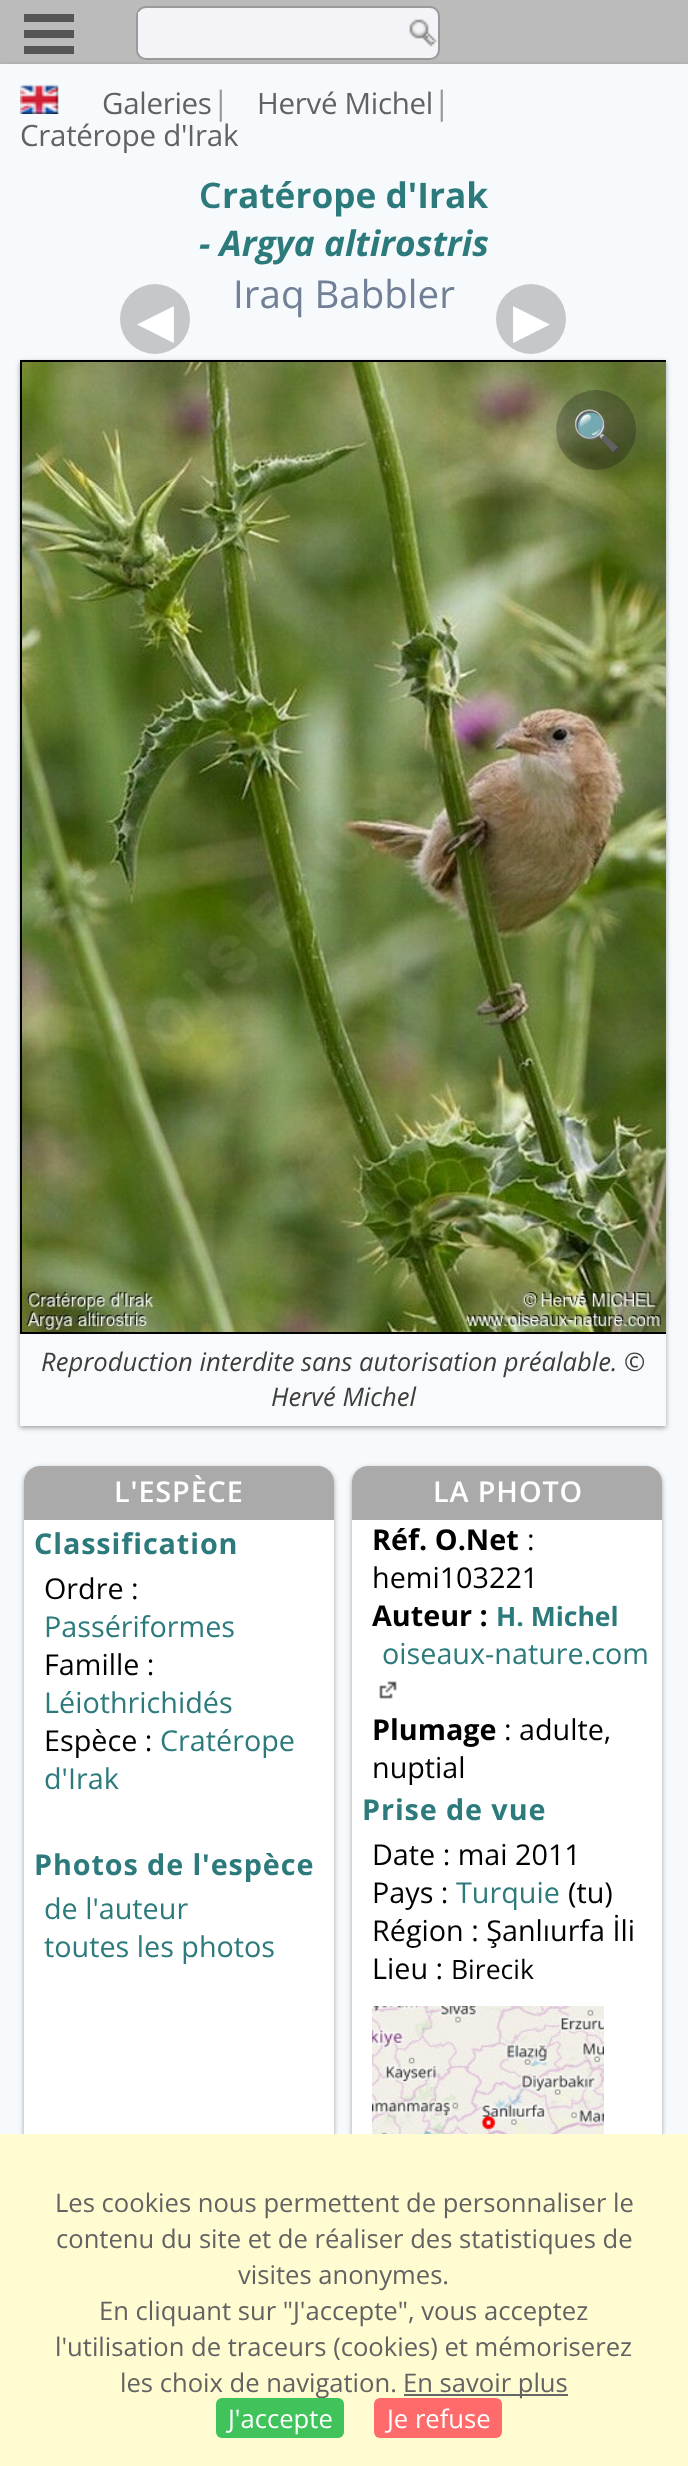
(async () => {
    const canvas = document.querySelector("canvas");
    canvas.width = 688;
    canvas.height = 2466;
    const context = canvas.getContext("2d");
    context.miterLimit = 4;
    context.fontKerning = "none";
    function write(s, x, y, font, color) {
        context.font = font;
        context.fillStyle = color;
        context.fillText(s, x, y);
    }
    function block(x, y, w, h, color) {
        context.fillStyle = color;
        context.fillRect(x, y, w, h);
    }
    function card(x, y, w, h, r, color) {
        context.fillStyle = color;
        context.beginPath();
        context.roundRect(x, y, w, h, r);
        context.fill();
    }
    async function photo(src, x, y, w, h) {
        const img = new Image();
        img.src = src;
        await img.decode();
        context.drawImage(img, x, y, w, h);
    }
    let gradient;

    block(0, 0, 688, 2466, "rgb(255, 255, 255)");
    gradient = context.createLinearGradient(344, 0, 344, 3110);
    gradient.addColorStop(0, "rgb(187, 187, 187)");
    gradient.addColorStop(0.16, "rgb(187, 187, 187)");
    gradient.addColorStop(0.29, "rgb(221, 221, 221)");
    gradient.addColorStop(0.9, "rgb(255, 255, 255)");
    gradient.addColorStop(1, "rgb(255, 255, 255)");
    context.fillStyle = gradient;
    context.fillRect(0, 0, 688, 64);
    block(24, 46, 50, 8, "rgb(85, 85, 85)");
    block(24, 30, 50, 8, "rgb(85, 85, 85)");
    block(24, 14, 50, 8, "rgb(85, 85, 85)");
    context.fillStyle = "rgba(0, 0, 0, 0.24)";
    context.filter = "blur(2px)";
    context.beginPath();
    context.rect(0, 66, 688, 2396);
    context.fill();
    context.filter = "none";
    context.fillStyle = "rgba(0, 0, 0, 0.12)";
    context.filter = "blur(3px)";
    context.beginPath();
    context.rect(0, 66, 688, 2396);
    context.fill();
    context.filter = "none";
    context.fillStyle = "rgb(243, 243, 248)";
    context.beginPath();
    context.roundRect(137, 7, 302, 52, 9);
    context.fill();
    context.strokeStyle = "rgb(153, 153, 153)";
    context.lineWidth = 2;
    context.stroke();
    block(138, 12, 1, 40, "rgb(243, 243, 248)");
    await photo("media/1.png", 409, 19, 28, 28);
    block(0, 64, 688, 2070, "rgb(247, 250, 252)");
    await photo("media/2.png", 20, 84, 39, 30);
    context.letterSpacing = "-0.3px";
    write("Galeries", 102, 114, "29.5px Open Sans", "rgb(98, 98, 98)");
    context.letterSpacing = "0px";
    write("|", 212, 114, "32px Open Sans", "rgb(153, 153, 153)");
    context.letterSpacing = "-0.3px";
    write("Hervé Michel", 257, 114, "29.5px Open Sans", "rgb(98, 98, 98)");
    context.letterSpacing = "0px";
    write("|", 433, 114, "32px Open Sans", "rgb(153, 153, 153)");
    context.letterSpacing = "-0.3px";
    write("Cratérope d'Irak", 20, 146, "29.5px Open Sans", "rgb(98, 98, 98)");
    context.letterSpacing = "0px";
    write("C", 199, 208, "600 35.25px Noto Sans", "rgb(44, 122, 123)");
    write("ratérope d'Irak", 222, 208, "bold 35.25px Open Sans", "rgb(44, 122, 123)");
    write("- Argya altirostris", 199, 256, "italic bold 35.25px Open Sans", "rgb(44, 122, 123)");
    write("Iraq Babbler", 233, 308, "38.5px Open Sans", "rgb(113, 128, 150)");
    context.fillStyle = "rgba(0, 0, 0, 0.12)";
    context.filter = "blur(3px)";
    context.beginPath();
    context.rect(20, 362, 646, 1066);
    context.fill();
    context.filter = "none";
    context.fillStyle = "rgb(197, 200, 202)";
    context.beginPath();
    context.arc(155, 319, 35, 0, Math.PI * 2);
    context.fill();
    write("◀", 137, 337, "48px DejaVu Sans", "rgb(255, 255, 255)");
    context.fillStyle = "rgb(197, 200, 202)";
    context.beginPath();
    context.arc(531, 319, 35, 0, Math.PI * 2);
    context.fill();
    write("▶", 513, 337, "48px DejaVu Sans", "rgb(255, 255, 255)");
    context.fillStyle = "rgba(0, 0, 0, 0.24)";
    context.filter = "blur(2px)";
    context.beginPath();
    context.rect(20, 362, 646, 1066);
    context.fill();
    context.filter = "none";
    context.save();
    context.beginPath();
    context.rect(20, 360, 646, 1066);
    context.clip();
    context.strokeStyle = "rgb(0, 0, 0)";
    context.strokeRect(21, 361, 648, 972);
    context.restore();
    await photo("media/3.png", 22, 362, 644, 970);
    context.beginPath();
    context.arc(596, 430, 40, 0, Math.PI * 2);
    context.fill();
    write("🔍", 572, 445, "40px Noto Color Emoji", "rgb(154, 160, 136)");
    block(20, 1334, 646, 92, "rgb(249, 250, 251)");
    write("Reproduction interdite sans autorisation préalable. ©", 41, 1371, "italic 25.6px Open Sans", "rgb(61, 61, 61)");
    write("Hervé Michel", 271, 1406, "italic 25.6px Open Sans", "rgb(61, 61, 61)");
    context.fillStyle = "rgba(0, 0, 0, 0.24)";
    context.filter = "blur(2px)";
    context.beginPath();
    context.roundRect(24, 1468, 310, 954, 16);
    context.fill();
    context.filter = "none";
    context.fillStyle = "rgba(0, 0, 0, 0.12)";
    context.filter = "blur(3px)";
    context.beginPath();
    context.roundRect(24, 1468, 310, 954, 16);
    context.fill();
    context.filter = "none";
    card(24, 1466, 310, 954, 16, "rgb(255, 255, 255)");
    context.fillStyle = "rgb(170, 170, 170)";
    context.beginPath();
    context.roundRect(24, 1466, 310, 54, [16, 16, 0, 0]);
    context.fill();
    context.letterSpacing = "0.9px";
    write("L'ESPÈCE", 114, 1502, "600 28.75px Open Sans", "rgb(255, 255, 255)");
    write("Classification", 34, 1554, "bold 28.75px Open Sans", "rgb(44, 122, 123)");
    context.letterSpacing = "0px";
    write("Ordre :", 44, 1599, "28.75px Open Sans", "rgb(0, 0, 0)");
    write("Passériformes", 44, 1637, "28.75px Open Sans", "rgb(44, 122, 123)");
    write("Famille :", 44, 1675, "28.75px Open Sans", "rgb(0, 0, 0)");
    write("Léiothrichidés", 44, 1713, "28.75px Open Sans", "rgb(44, 122, 123)");
    write("Espèce :", 44, 1751, "28.75px Open Sans", "rgb(0, 0, 0)");
    write("Cratérope", 160, 1751, "28.75px Open Sans", "rgb(44, 122, 123)");
    write("d'Irak", 44, 1789, "28.75px Open Sans", "rgb(44, 122, 123)");
    context.letterSpacing = "0.9px";
    write("Photos de l'espèce", 34, 1875, "bold 28.75px Open Sans", "rgb(44, 122, 123)");
    context.letterSpacing = "0px";
    write("de l'auteur", 44, 1919, "28.75px Open Sans", "rgb(44, 122, 123)");
    write("toutes les photos", 44, 1957, "28.75px Open Sans", "rgb(44, 122, 123)");
    context.fillStyle = "rgba(0, 0, 0, 0.24)";
    context.filter = "blur(2px)";
    context.beginPath();
    context.roundRect(352, 1468, 310, 954, 16);
    context.fill();
    context.filter = "none";
    context.fillStyle = "rgba(0, 0, 0, 0.12)";
    context.filter = "blur(3px)";
    context.beginPath();
    context.roundRect(352, 1468, 310, 954, 16);
    context.fill();
    context.filter = "none";
    card(352, 1466, 310, 954, 16, "rgb(255, 255, 255)");
    context.fillStyle = "rgb(170, 170, 170)";
    context.beginPath();
    context.roundRect(352, 1466, 310, 54, [16, 16, 0, 0]);
    context.fill();
    context.letterSpacing = "0.9px";
    write("LA PHOTO", 433, 1502, "600 28.75px Open Sans", "rgb(255, 255, 255)");
    context.letterSpacing = "0px";
    write("Réf. O.Net", 372, 1550, "bold 28.75px Open Sans", "rgb(0, 0, 0)");
    write(":", 527, 1550, "28.75px Open Sans", "rgb(0, 0, 0)");
    write("hemi103221", 372, 1588, "28.75px Open Sans", "rgb(0, 0, 0)");
    write("Auteur :", 372, 1626, "bold 28.75px Open Sans", "rgb(0, 0, 0)");
    write("H. Michel", 496, 1626, "bold 26.5px Open Sans", "rgb(44, 122, 123)");
    write("oiseaux-nature.com", 382, 1664, "28.75px Open Sans", "rgb(44, 122, 123)");
    await photo("media/4.png", 379, 1681, 18, 18);
    write("Plumage", 372, 1740, "bold 28.75px Open Sans", "rgb(0, 0, 0)");
    write(": adulte,", 504, 1740, "28.75px Open Sans", "rgb(0, 0, 0)");
    write("nuptial", 372, 1778, "28.75px Open Sans", "rgb(0, 0, 0)");
    context.letterSpacing = "0.9px";
    write("Prise de vue", 362, 1820, "bold 28.75px Open Sans", "rgb(44, 122, 123)");
    context.letterSpacing = "0px";
    write("Date : mai 2011", 372, 1865, "28.75px Open Sans", "rgb(0, 0, 0)");
    write("Pays :", 372, 1903, "28.75px Open Sans", "rgb(0, 0, 0)");
    write("Turquie", 456, 1903, "28.75px Open Sans", "rgb(44, 122, 123)");
    write("(tu)", 568, 1903, "28.75px Open Sans", "rgb(0, 0, 0)");
    write("Région : Şanlıurfa İli", 372, 1941, "28.75px Open Sans", "rgb(0, 0, 0)");
    write("Lieu :", 372, 1979, "28.75px Open Sans", "rgb(0, 0, 0)");
    write("Birecik", 451, 1979, "26.5px Open Sans", "rgb(0, 0, 0)");
    await photo("media/5.png", 372, 2006, 232, 128);
    block(0, 2134, 688, 332, "rgb(255, 252, 209)");
    write("Les cookies nous permettent de personnaliser le", 55, 2212, "25.6px Open Sans", "rgb(98, 98, 98)");
    write("contenu du site et de réaliser des statistiques de", 56, 2248, "25.6px Open Sans", "rgb(98, 98, 98)");
    write("visites anonymes.", 238, 2284, "25.6px Open Sans", "rgb(98, 98, 98)");
    write("En cliquant sur \"J'accepte\", vous acceptez", 99, 2320, "25.6px Open Sans", "rgb(98, 98, 98)");
    write("l'utilisation de traceurs (cookies) et mémoriserez", 55, 2356, "25.6px Open Sans", "rgb(98, 98, 98)");
    write("les choix de navigation.", 120, 2392, "25.6px Open Sans", "rgb(98, 98, 98)");
    block(404, 2394, 164, 2, "rgb(102, 102, 102)");
    write("En savoir plus", 403, 2392, "25.6px Open Sans", "rgb(98, 98, 98)");
    card(216, 2398, 128, 40, 6, "rgb(63, 195, 90)");
    write("J'accepte", 228, 2428, "25.6px Open Sans", "rgb(255, 255, 255)");
    card(374, 2398, 128, 40, 6, "rgb(255, 107, 107)");
    write("Je refuse", 387, 2428, "25.6px Open Sans", "rgb(255, 255, 255)");
})();
